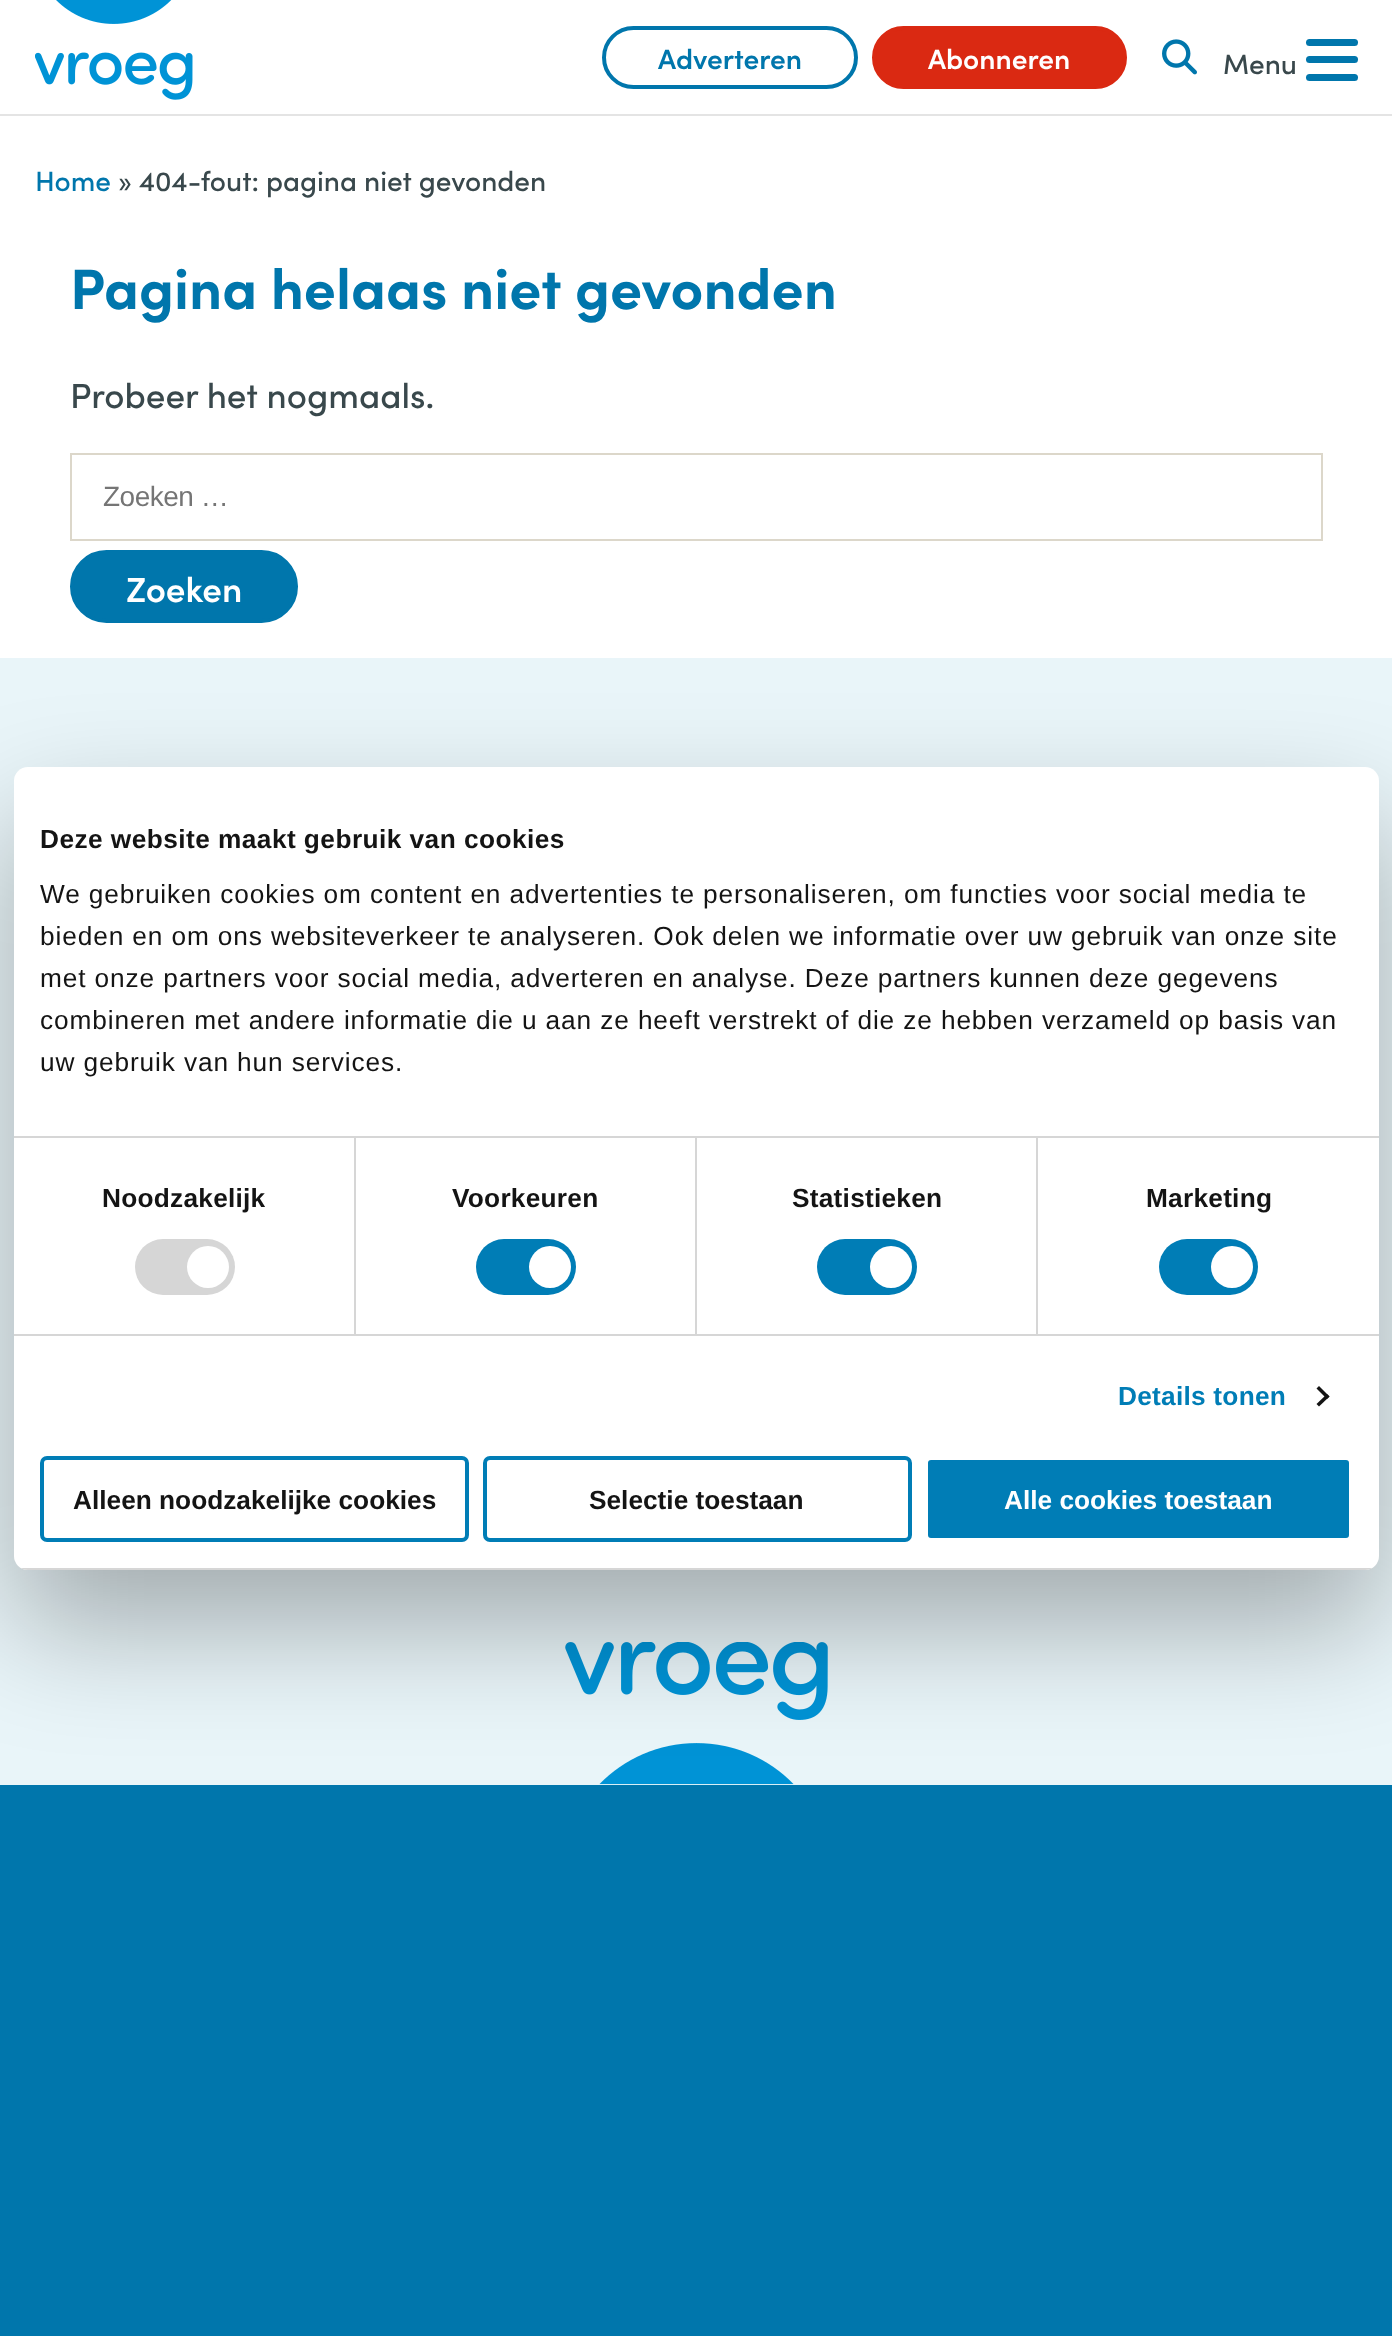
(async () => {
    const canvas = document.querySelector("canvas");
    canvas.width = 1392;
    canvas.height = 2336;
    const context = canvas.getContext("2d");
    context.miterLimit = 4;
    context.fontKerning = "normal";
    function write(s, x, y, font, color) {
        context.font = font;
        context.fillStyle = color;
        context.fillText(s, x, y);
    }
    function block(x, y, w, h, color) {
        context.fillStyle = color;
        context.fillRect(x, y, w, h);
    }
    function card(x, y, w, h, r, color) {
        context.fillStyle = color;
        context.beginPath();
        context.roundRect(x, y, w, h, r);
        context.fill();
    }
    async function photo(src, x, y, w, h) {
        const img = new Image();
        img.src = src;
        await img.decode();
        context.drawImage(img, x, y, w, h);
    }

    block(0, 0, 1392, 2336, "rgb(0, 118, 172)");
    block(0, 0, 1392, 658, "rgb(255, 255, 255)");
    block(0, 114, 1392, 2, "rgb(228, 228, 228)");
    await photo("media/1.png", 35, 0, 158, 100);
    context.beginPath();
    context.roundRect(604, 28, 252, 59, 29.5);
    context.strokeStyle = "rgb(0, 118, 172)";
    context.lineWidth = 4;
    context.stroke();
    write("Adverteren", 658, 69, "600 28px Sofia", "rgb(0, 118, 172)");
    context.fillStyle = "rgb(218, 41, 18)";
    context.beginPath();
    context.roundRect(874, 28, 251, 59, 29.5);
    context.fill();
    context.strokeStyle = "rgb(218, 41, 18)";
    context.stroke();
    write("Abonneren", 928, 69, "600 28px Sofia", "rgb(255, 255, 255)");
    await photo("media/2.png", 1162, 39, 35, 36);
    write("Menu", 1223, 74, "500 28px Sofia", "rgb(57, 72, 76)");
    card(1306, 56, 52, 7, 3.5, "rgb(0, 118, 172)");
    card(1306, 39, 52, 7, 3.5, "rgb(0, 118, 172)");
    card(1306, 74, 52, 7, 3.5, "rgb(0, 118, 172)");
    write("Home", 35, 191, "500 28px Sofia", "rgb(0, 118, 172)");
    write("» 404-fout: pagina niet gevonden", 118, 191, "500 28px Sofia", "rgb(57, 72, 76)");
    write("Pagina helaas niet gevonden", 70, 309, "bold 57px Sofia", "rgb(0, 118, 172)");
    write("Probeer het nogmaals.", 70, 408, "500 35px Sofia", "rgb(57, 72, 76)");
    context.strokeStyle = "rgb(220, 215, 202)";
    context.lineWidth = 2;
    context.strokeRect(71, 454, 1251, 86);
    context.letterSpacing = "-0.5px";
    write("Zoeken …", 103, 506, "28px Liberation Sans", "rgb(117, 117, 117)");
    context.fillStyle = "rgb(0, 118, 172)";
    context.beginPath();
    context.roundRect(72, 552, 224, 69, 34.5);
    context.fill();
    context.strokeStyle = "rgb(0, 118, 172)";
    context.lineWidth = 4;
    context.stroke();
    context.letterSpacing = "0px";
    write("Zoeken", 126, 602, "600 35px Sofia", "rgb(255, 255, 255)");
    block(0, 658, 1392, 1127, "rgb(233, 245, 249)");
    await photo("media/3.png", 565, 1642, 263, 143);
    context.fillStyle = "rgba(0, 0, 0, 0.3)";
    context.filter = "blur(59.5px)";
    context.beginPath();
    context.roundRect(14, 823, 1365, 803, 14);
    context.fill();
    context.filter = "none";
    card(14, 767, 1365, 803, 14, "rgb(255, 255, 255)");
    block(14, 1136, 1365, 2, "rgb(214, 214, 214)");
    context.letterSpacing = "0.45px";
    write("Deze website maakt gebruik van cookies", 40, 848, "bold 26.25px Liberation Sans", "rgb(20, 20, 20)");
    context.letterSpacing = "0.88px";
    write("We gebruiken cookies om content en advertenties te personaliseren, om functies voor social media te", 40, 903, "26.25px Liberation Sans", "rgb(20, 20, 20)");
    write("bieden en om ons websiteverkeer te analyseren. Ook delen we informatie over uw gebruik van onze site", 40, 945, "26.25px Liberation Sans", "rgb(20, 20, 20)");
    write("met onze partners voor social media, adverteren en analyse. Deze partners kunnen deze gegevens", 40, 987, "26.25px Liberation Sans", "rgb(20, 20, 20)");
    write("combineren met andere informatie die u aan ze heeft verstrekt of die ze hebben verzameld op basis van", 40, 1029, "26.25px Liberation Sans", "rgb(20, 20, 20)");
    write("uw gebruik van hun services.", 40, 1071, "26.25px Liberation Sans", "rgb(20, 20, 20)");
    block(14, 1334, 1365, 2, "rgb(214, 214, 214)");
    block(354, 1138, 2, 196, "rgb(214, 214, 214)");
    context.letterSpacing = "0.25px";
    write("Noodzakelijk", 102, 1207, "bold 26.25px Liberation Sans", "rgb(20, 20, 20)");
    card(135, 1239, 100, 56, 28, "rgb(214, 214, 214)");
    context.fillStyle = "rgb(255, 255, 255)";
    context.beginPath();
    context.arc(208, 1267, 21, 0, Math.PI * 2);
    context.fill();
    block(695, 1138, 2, 196, "rgb(214, 214, 214)");
    write("Voorkeuren", 452, 1207, "bold 26.25px Liberation Sans", "rgb(20, 20, 20)");
    card(476, 1239, 100, 56, 28, "rgb(0, 125, 182)");
    context.fillStyle = "rgb(255, 255, 255)";
    context.beginPath();
    context.arc(550, 1267, 21, 0, Math.PI * 2);
    context.fill();
    block(1036, 1138, 2, 196, "rgb(214, 214, 214)");
    write("Statistieken", 792, 1207, "bold 26.25px Liberation Sans", "rgb(20, 20, 20)");
    card(817, 1239, 100, 56, 28, "rgb(0, 125, 182)");
    context.fillStyle = "rgb(255, 255, 255)";
    context.beginPath();
    context.arc(891, 1267, 21, 0, Math.PI * 2);
    context.fill();
    write("Marketing", 1146, 1207, "bold 26.25px Liberation Sans", "rgb(20, 20, 20)");
    card(1159, 1239, 99, 56, 28, "rgb(0, 125, 182)");
    context.fillStyle = "rgb(255, 255, 255)";
    context.beginPath();
    context.arc(1232, 1267, 21, 0, Math.PI * 2);
    context.fill();
    write("Details tonen", 1118, 1405, "bold 26.25px Liberation Sans", "rgb(0, 125, 182)");
    context.fillStyle = "rgb(20, 20, 20)";
    context.beginPath();
    context.moveTo(1319, 1386);
    context.lineTo(1329.5, 1396.5);
    context.lineTo(1327, 1399);
    context.lineTo(1316.5, 1388.5);
    context.closePath();
    context.fill();
    context.beginPath();
    context.moveTo(1327, 1394);
    context.lineTo(1329.5, 1396.5);
    context.lineTo(1319, 1406.5);
    context.lineTo(1316.5, 1404);
    context.closePath();
    context.fill();
    context.save();
    context.beginPath();
    context.roundRect(14, 767, 1365, 803, 14);
    context.clip();
    block(14, 1568, 1365, 2, "rgb(214, 214, 214)");
    context.restore();
    context.beginPath();
    context.roundRect(42, 1458, 425, 82, 5);
    context.strokeStyle = "rgb(0, 125, 182)";
    context.stroke();
    context.letterSpacing = "0px";
    write("Alleen noodzakelijke cookies", 73, 1509, "bold 26.25px Liberation Sans", "rgb(20, 20, 20)");
    context.beginPath();
    context.roundRect(485, 1458, 425, 82, 5);
    context.stroke();
    write("Selectie toestaan", 589, 1509, "bold 26.25px Liberation Sans", "rgb(20, 20, 20)");
    context.fillStyle = "rgb(0, 125, 182)";
    context.beginPath();
    context.roundRect(926, 1458, 425, 82, 5);
    context.fill();
    context.strokeStyle = "rgb(255, 255, 255)";
    context.stroke();
    write("Alle cookies toestaan", 1004, 1509, "bold 26.25px Liberation Sans", "rgb(255, 255, 255)");
})();
